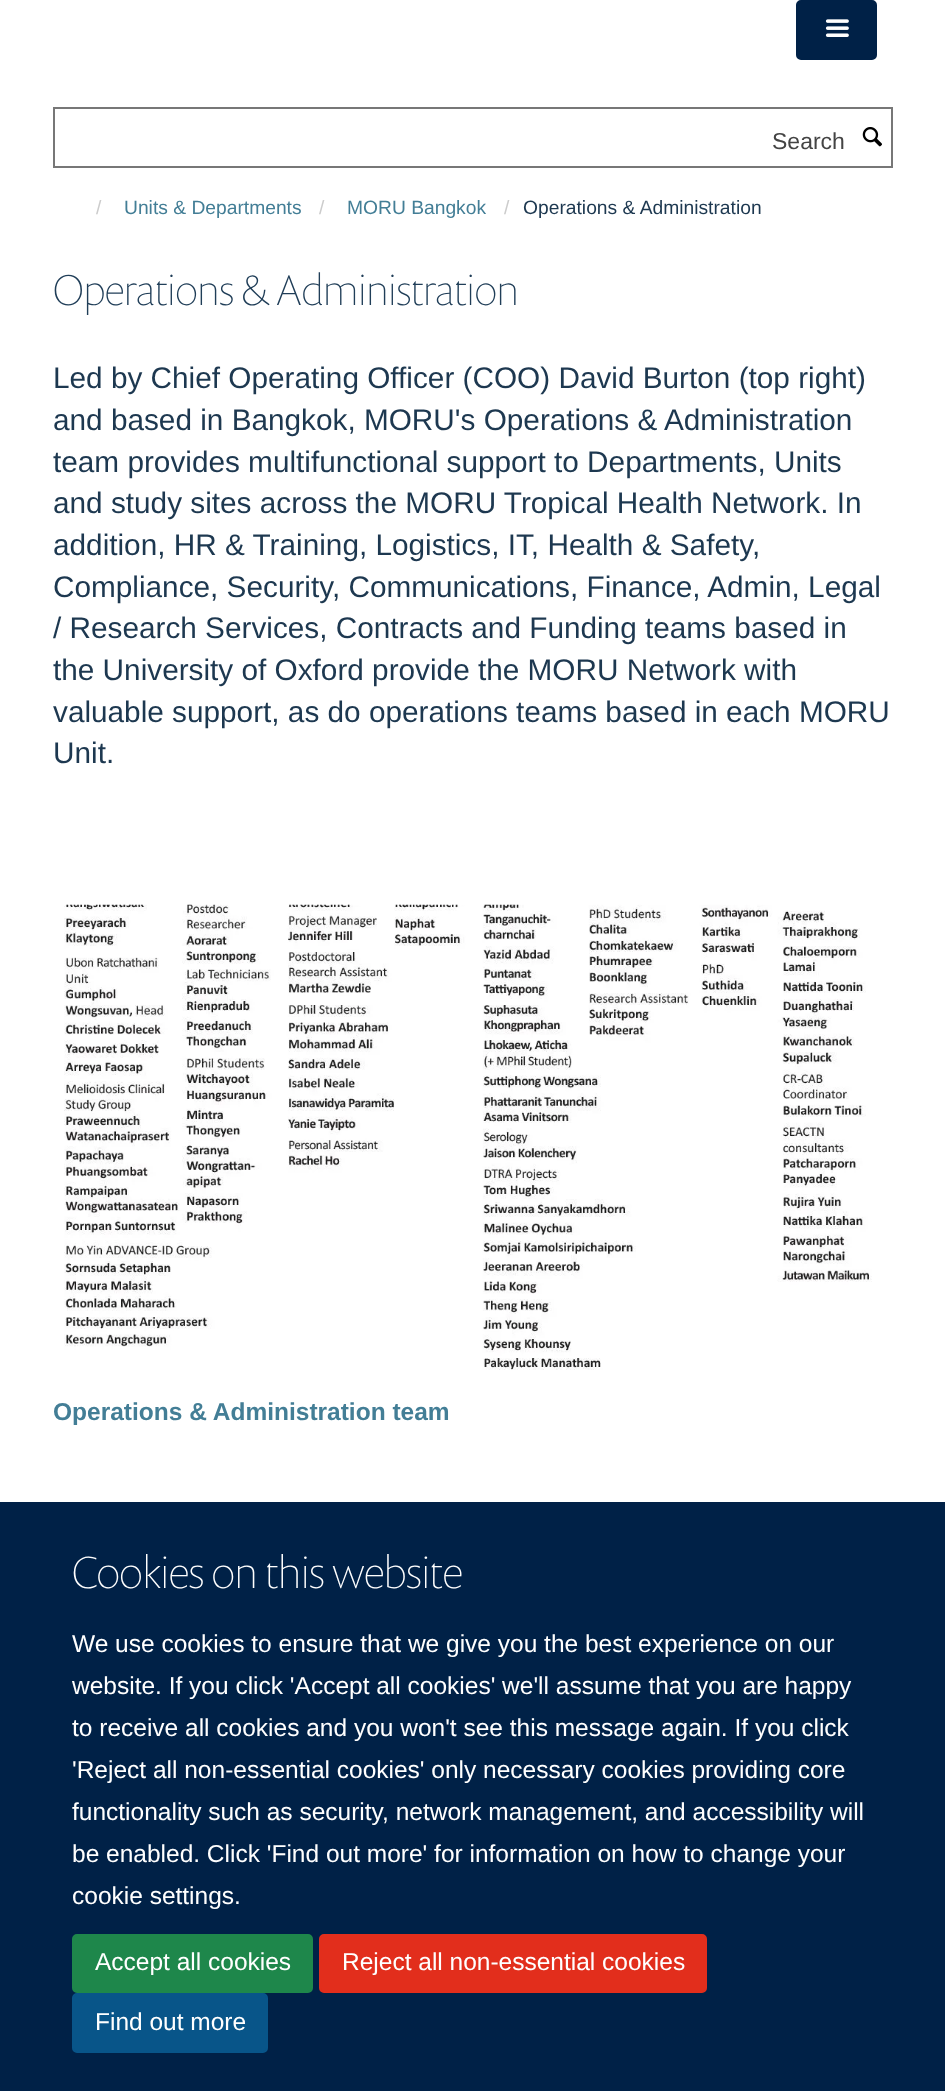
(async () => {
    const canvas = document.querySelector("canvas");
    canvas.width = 945;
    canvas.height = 2091;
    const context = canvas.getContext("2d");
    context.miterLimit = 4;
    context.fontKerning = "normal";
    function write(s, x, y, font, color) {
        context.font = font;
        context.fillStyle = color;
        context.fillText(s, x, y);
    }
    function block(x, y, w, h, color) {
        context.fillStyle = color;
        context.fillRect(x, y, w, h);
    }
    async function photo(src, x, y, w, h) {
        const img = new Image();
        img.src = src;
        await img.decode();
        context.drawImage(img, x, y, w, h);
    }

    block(0, 0, 945, 2091, "rgb(255, 255, 255)");
    context.fillStyle = "rgb(0, 33, 71)";
    context.beginPath();
    context.roundRect(797, 1, 79, 58, 4);
    context.fill();
    context.strokeStyle = "rgb(0, 33, 71)";
    context.lineWidth = 2;
    context.stroke();
    await photo("media/1.png", 825, 19, 24, 18);
    context.strokeStyle = "rgb(119, 119, 119)";
    context.strokeRect(54, 108, 838, 59);
    write("Search", 772, 149, "23px Liberation Sans", "rgb(68, 68, 68)");
    await photo("media/2.png", 862, 127, 20, 20);
    write("/", 96, 214, "19.25px Liberation Sans", "rgb(204, 204, 204)");
    write("Units & Departments", 124, 214, "19.25px Liberation Sans", "rgb(67, 126, 150)");
    write("/", 319, 214, "19.25px Liberation Sans", "rgb(204, 204, 204)");
    write("MORU Bangkok", 347, 214, "19.25px Liberation Sans", "rgb(67, 126, 150)");
    write("/", 504, 214, "19.25px Liberation Sans", "rgb(204, 204, 204)");
    write("Operations & Administration", 523, 214, "19.25px Liberation Sans", "rgb(29, 56, 80)");
    write("Operations & Administration", 53, 305, "100 43.75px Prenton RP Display", "rgb(32, 62, 88)");
    write("Led by Chief Operating Officer (COO) David Burton (top right)", 53, 388, "29.75px Liberation Sans", "rgb(29, 56, 80)");
    write("and based in Bangkok, MORU's Operations & Administration", 53, 430, "29.75px Liberation Sans", "rgb(29, 56, 80)");
    write("team provides multifunctional support to Departments, Units", 53, 472, "29.75px Liberation Sans", "rgb(29, 56, 80)");
    write("and study sites across the MORU Tropical Health Network. In", 53, 513, "29.75px Liberation Sans", "rgb(29, 56, 80)");
    write("addition, HR & Training, Logistics, IT, Health & Safety,", 53, 555, "29.75px Liberation Sans", "rgb(29, 56, 80)");
    write("Compliance, Security, Communications, Finance, Admin, Legal", 53, 597, "29.75px Liberation Sans", "rgb(29, 56, 80)");
    write("/ Research Services, Contracts and Funding teams based in", 53, 638, "29.75px Liberation Sans", "rgb(29, 56, 80)");
    write("the University of Oxford provide the MORU Network with", 53, 680, "29.75px Liberation Sans", "rgb(29, 56, 80)");
    write("valuable support, as do operations teams based in each MORU", 53, 722, "29.75px Liberation Sans", "rgb(29, 56, 80)");
    write("Unit.", 53, 763, "29.75px Liberation Sans", "rgb(29, 56, 80)");
    await photo("media/3.png", 64, 904, 808, 466);
    write("Operations & Administration team", 53, 1420, "bold 24.5px Liberation Sans", "rgb(67, 126, 150)");
    block(0, 1502, 945, 589, "rgb(0, 33, 71)");
    write("Cookies on this website", 72, 1588, "100 45.5px Prenton RP Display", "rgb(255, 255, 255)");
    write("We use cookies to ensure that we give you the best experience on our", 72, 1652, "24.5px Liberation Sans", "rgb(255, 255, 255)");
    write("website. If you click 'Accept all cookies' we'll assume that you are happy", 72, 1694, "24.5px Liberation Sans", "rgb(255, 255, 255)");
    write("to receive all cookies and you won't see this message again. If you click", 72, 1736, "24.5px Liberation Sans", "rgb(255, 255, 255)");
    write("'Reject all non-essential cookies' only necessary cookies providing core", 72, 1778, "24.5px Liberation Sans", "rgb(255, 255, 255)");
    write("functionality such as security, network management, and accessibility will", 72, 1820, "24.5px Liberation Sans", "rgb(255, 255, 255)");
    write("be enabled. Click 'Find out more' for information on how to change your", 72, 1862, "24.5px Liberation Sans", "rgb(255, 255, 255)");
    write("cookie settings.", 72, 1904, "24.5px Liberation Sans", "rgb(255, 255, 255)");
    context.fillStyle = "rgb(30, 135, 75)";
    context.beginPath();
    context.roundRect(73, 1935, 239, 57, 4);
    context.fill();
    context.strokeStyle = "rgb(30, 135, 75)";
    context.stroke();
    write("Accept all cookies", 95, 1970, "24.5px Liberation Sans", "rgb(255, 255, 255)");
    context.fillStyle = "rgb(226, 46, 28)";
    context.beginPath();
    context.roundRect(320, 1935, 386, 57, 4);
    context.fill();
    context.strokeStyle = "rgb(226, 46, 28)";
    context.stroke();
    write("Reject all non-essential cookies", 342, 1970, "24.5px Liberation Sans", "rgb(255, 255, 255)");
    context.fillStyle = "rgb(8, 85, 137)";
    context.beginPath();
    context.roundRect(73, 1994, 194, 58, 4);
    context.fill();
    context.strokeStyle = "rgb(8, 85, 137)";
    context.stroke();
    write("Find out more", 95, 2030, "24.5px Liberation Sans", "rgb(255, 255, 255)");
})();
